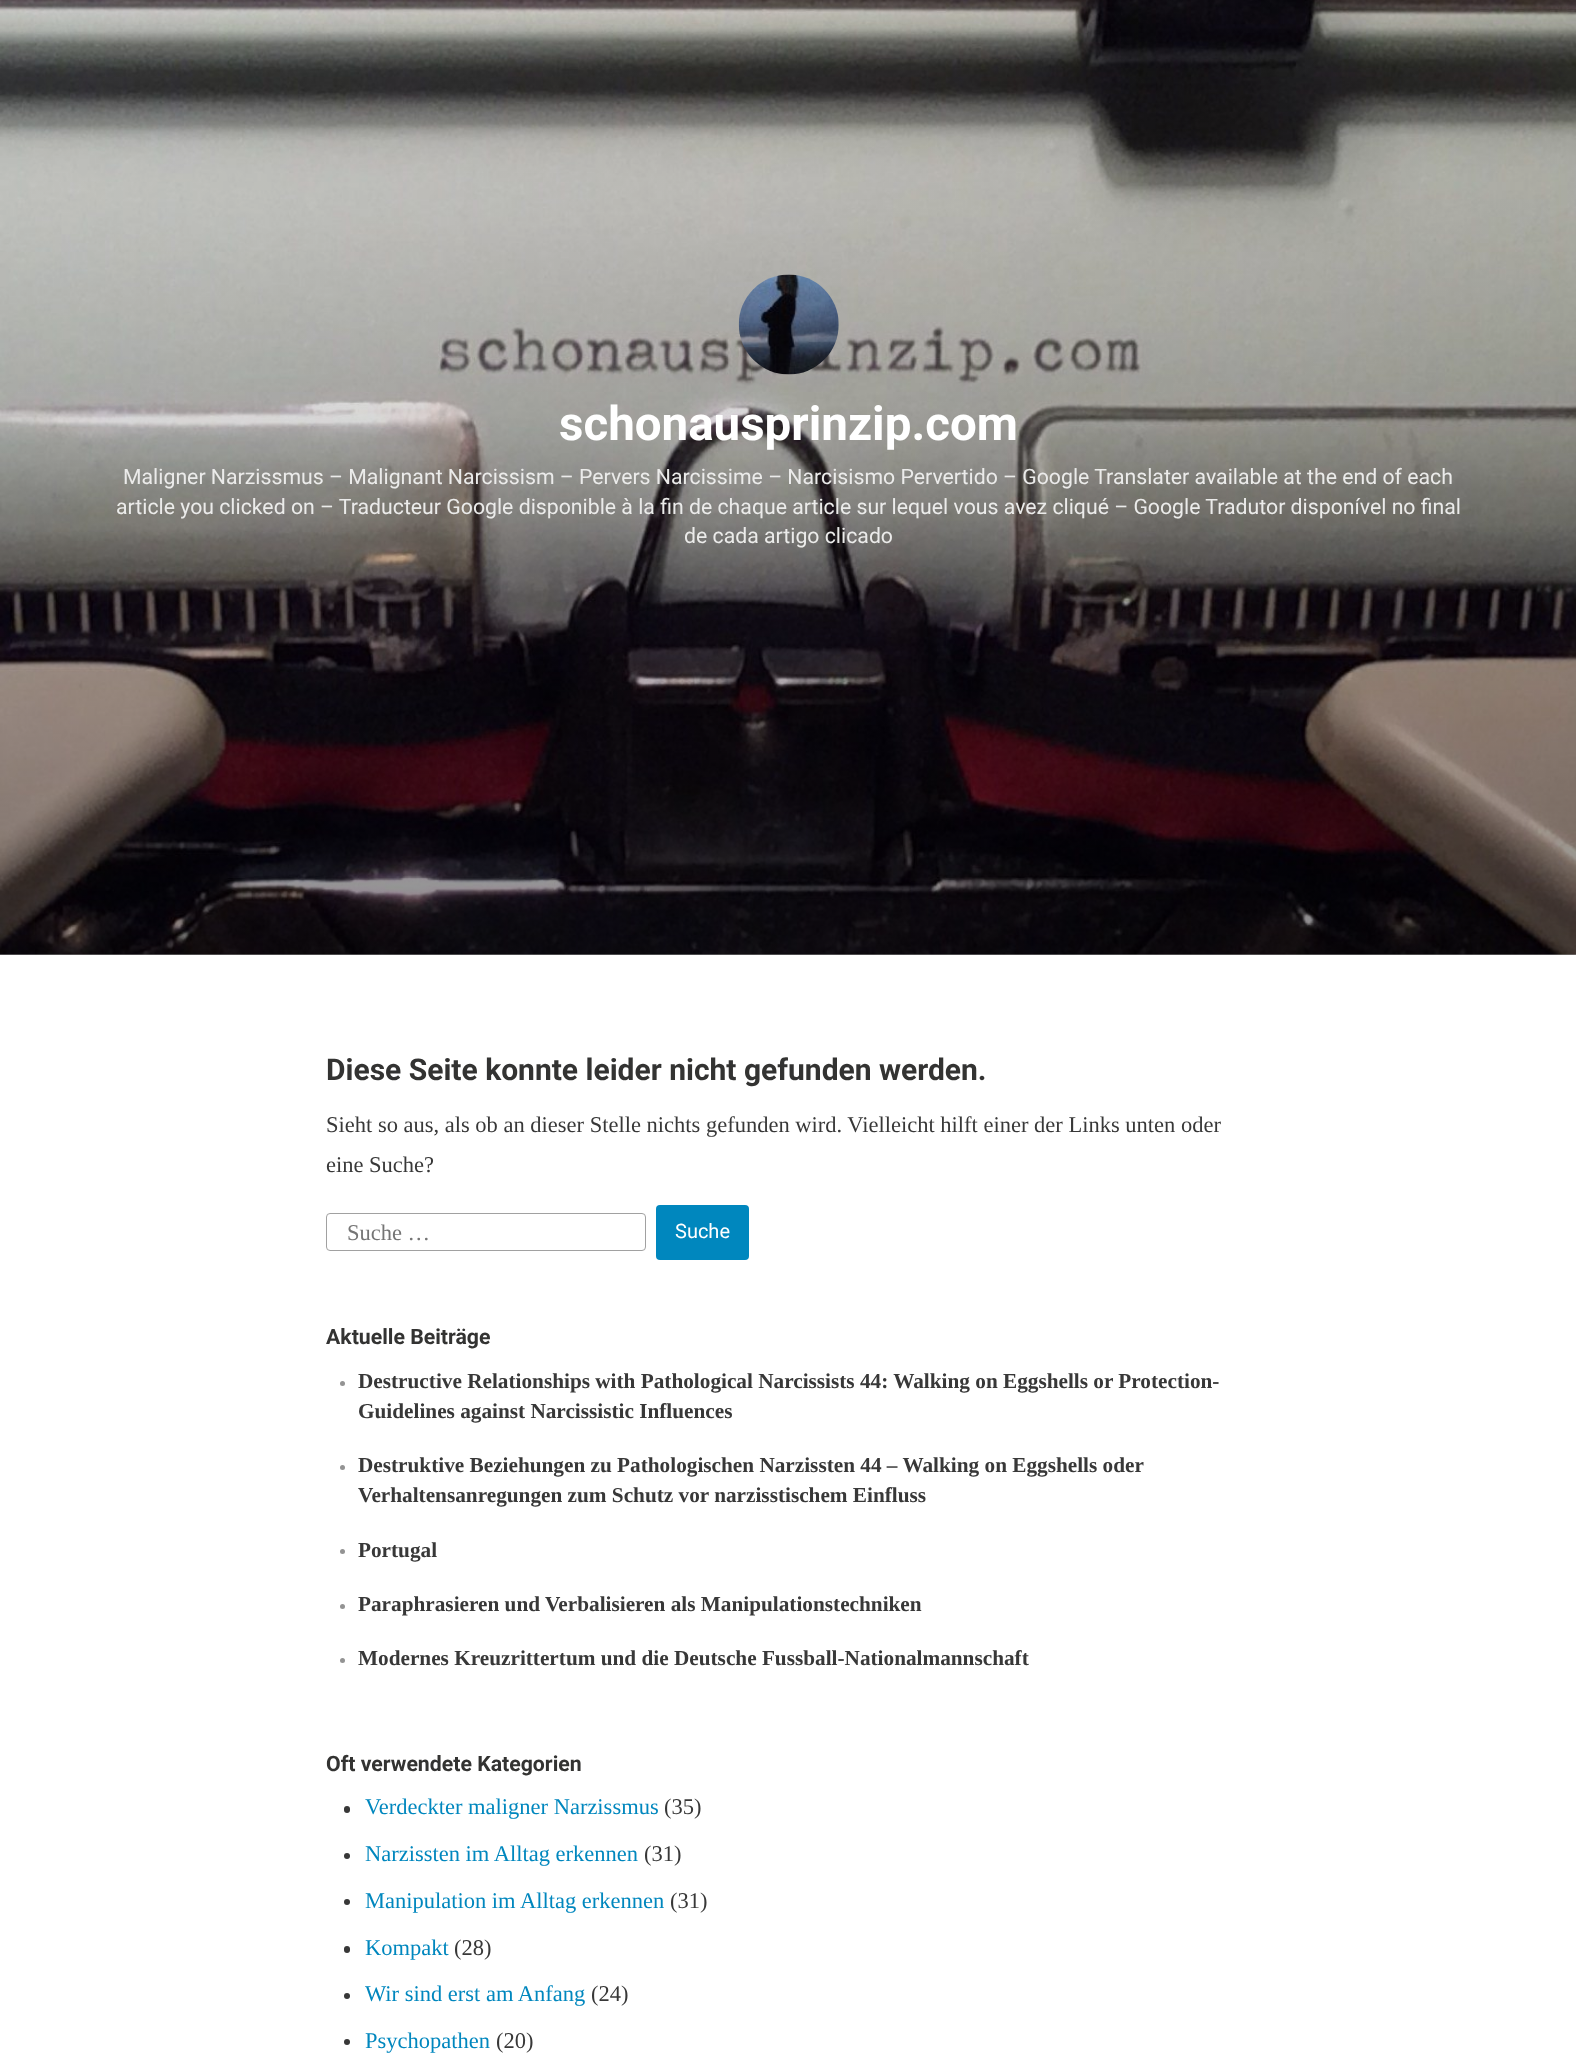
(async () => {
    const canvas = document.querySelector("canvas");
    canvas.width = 1576;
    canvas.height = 2072;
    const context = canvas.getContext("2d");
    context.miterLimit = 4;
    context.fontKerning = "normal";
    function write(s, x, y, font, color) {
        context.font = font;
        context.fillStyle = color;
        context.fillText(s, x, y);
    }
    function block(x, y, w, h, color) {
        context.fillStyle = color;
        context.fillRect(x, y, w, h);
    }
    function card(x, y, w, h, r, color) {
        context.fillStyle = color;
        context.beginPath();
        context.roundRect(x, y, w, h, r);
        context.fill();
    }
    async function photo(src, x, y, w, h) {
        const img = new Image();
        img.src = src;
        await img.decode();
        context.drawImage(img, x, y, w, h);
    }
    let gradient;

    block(0, 0, 1576, 2072, "rgb(255, 255, 255)");
    await photo("media/1.png", 0, 0, 1576, 955);
    gradient = context.createLinearGradient(788, -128, 788, 955);
    gradient.addColorStop(0.5, "rgba(0, 0, 0, 0.15)");
    gradient.addColorStop(1, "rgba(0, 0, 0, 0.45)");
    context.fillStyle = gradient;
    context.fillRect(0, 0, 1576, 955);
    await photo("media/2.png", 738, 274, 101, 101);
    write("schonausprinzip.com", 559, 440, "bold 47.5px Roboto", "rgb(255, 255, 255)");
    write("Maligner Narzissmus – Malignant Narcissism – Pervers Narcissime – Narcisismo Pervertido – Google Translater available at the end of each", 123, 484, "21.25px Roboto", "rgb(235, 235, 234)");
    write("article you clicked on – Traducteur Google disponible à la fin de chaque article sur lequel vous avez cliqué – Google Tradutor disponível no final", 116, 514, "21.25px Roboto", "rgb(235, 235, 234)");
    write("de cada artigo clicado", 684, 543, "21.25px Roboto", "rgb(235, 235, 234)");
    write("Diese Seite konnte leider nicht gefunden werden.", 326, 1080, "bold 30px Roboto", "rgb(51, 51, 50)");
    write("Sieht so aus, als ob an dieser Stelle nichts gefunden wird. Vielleicht hilft einer der Links unten oder", 326, 1132, "22.5px Liberation Serif", "rgb(56, 56, 56)");
    write("eine Suche?", 326, 1172, "22.5px Liberation Serif", "rgb(56, 56, 56)");
    context.beginPath();
    context.roundRect(326.5, 1213.5, 319, 37, 3.5);
    context.strokeStyle = "rgb(161, 161, 161)";
    context.stroke();
    write("Suche …", 347, 1240, "22.5px Liberation Serif", "rgb(117, 117, 117)");
    card(656, 1205, 93, 55, 4, "rgb(0, 135, 190)");
    write("Suche", 675, 1238, "20px Roboto", "rgb(255, 255, 255)");
    write("Aktuelle Beiträge", 326, 1344, "bold 21.25px Roboto", "rgb(51, 51, 50)");
    context.fillStyle = "rgb(147, 147, 147)";
    context.beginPath();
    context.arc(342.5, 1383.5, 2.5, 0, Math.PI * 2);
    context.fill();
    write("Destructive Relationships with Pathological Narcissists 44: Walking on Eggshells or Protection-", 358, 1388, "bold 21.25px Liberation Serif", "rgb(56, 56, 56)");
    write("Guidelines against Narcissistic Influences", 358, 1418, "bold 21.25px Liberation Serif", "rgb(56, 56, 56)");
    context.fillStyle = "rgb(147, 147, 147)";
    context.beginPath();
    context.arc(342.5, 1467.5, 2.5, 0, Math.PI * 2);
    context.fill();
    write("Destruktive Beziehungen zu Pathologischen Narzissten 44 – Walking on Eggshells oder", 358, 1472, "bold 21.25px Liberation Serif", "rgb(56, 56, 56)");
    write("Verhaltensanregungen zum Schutz vor narzisstischem Einfluss", 358, 1502, "bold 21.25px Liberation Serif", "rgb(56, 56, 56)");
    context.fillStyle = "rgb(147, 147, 147)";
    context.beginPath();
    context.arc(342.5, 1551.5, 2.5, 0, Math.PI * 2);
    context.fill();
    write("Portugal", 358, 1557, "bold 21.25px Liberation Serif", "rgb(56, 56, 56)");
    context.fillStyle = "rgb(147, 147, 147)";
    context.beginPath();
    context.arc(342.5, 1606.5, 2.5, 0, Math.PI * 2);
    context.fill();
    write("Paraphrasieren und Verbalisieren als Manipulationstechniken", 358, 1611, "bold 21.25px Liberation Serif", "rgb(56, 56, 56)");
    context.fillStyle = "rgb(147, 147, 147)";
    context.beginPath();
    context.arc(342.5, 1660.5, 2.5, 0, Math.PI * 2);
    context.fill();
    write("Modernes Kreuzrittertum und die Deutsche Fussball-Nationalmannschaft", 358, 1665, "bold 21.25px Liberation Serif", "rgb(56, 56, 56)");
    write("Oft verwendete Kategorien", 326, 1771, "bold 21.25px Roboto", "rgb(51, 51, 50)");
    card(344, 1806, 6, 7, 3, "rgb(56, 56, 56)");
    write("Verdeckter maligner Narzissmus", 365, 1814, "22.5px Liberation Serif", "rgb(0, 135, 190)");
    write("(35)", 664, 1814, "22.5px Liberation Serif", "rgb(56, 56, 56)");
    context.beginPath();
    context.arc(347, 1856, 3, 0, Math.PI * 2);
    context.fill();
    write("Narzissten im Alltag erkennen", 365, 1861, "22.5px Liberation Serif", "rgb(0, 135, 190)");
    write("(31)", 644, 1861, "22.5px Liberation Serif", "rgb(56, 56, 56)");
    context.beginPath();
    context.arc(347, 1902, 3, 0, Math.PI * 2);
    context.fill();
    write("Manipulation im Alltag erkennen", 365, 1908, "22.5px Liberation Serif", "rgb(0, 135, 190)");
    write("(31)", 670, 1908, "22.5px Liberation Serif", "rgb(56, 56, 56)");
    card(344, 1946, 6, 7, 3, "rgb(56, 56, 56)");
    write("Kompakt", 365, 1955, "22.5px Liberation Serif", "rgb(0, 135, 190)");
    write("(28)", 454, 1955, "22.5px Liberation Serif", "rgb(56, 56, 56)");
    context.beginPath();
    context.arc(347, 1996, 3, 0, Math.PI * 2);
    context.fill();
    write("Wir sind erst am Anfang", 365, 2001, "22.5px Liberation Serif", "rgb(0, 135, 190)");
    write("(24)", 591, 2001, "22.5px Liberation Serif", "rgb(56, 56, 56)");
    context.beginPath();
    context.arc(347, 2042, 3, 0, Math.PI * 2);
    context.fill();
    write("Psychopathen", 365, 2048, "22.5px Liberation Serif", "rgb(0, 135, 190)");
    write("(20)", 496, 2048, "22.5px Liberation Serif", "rgb(56, 56, 56)");
})();
